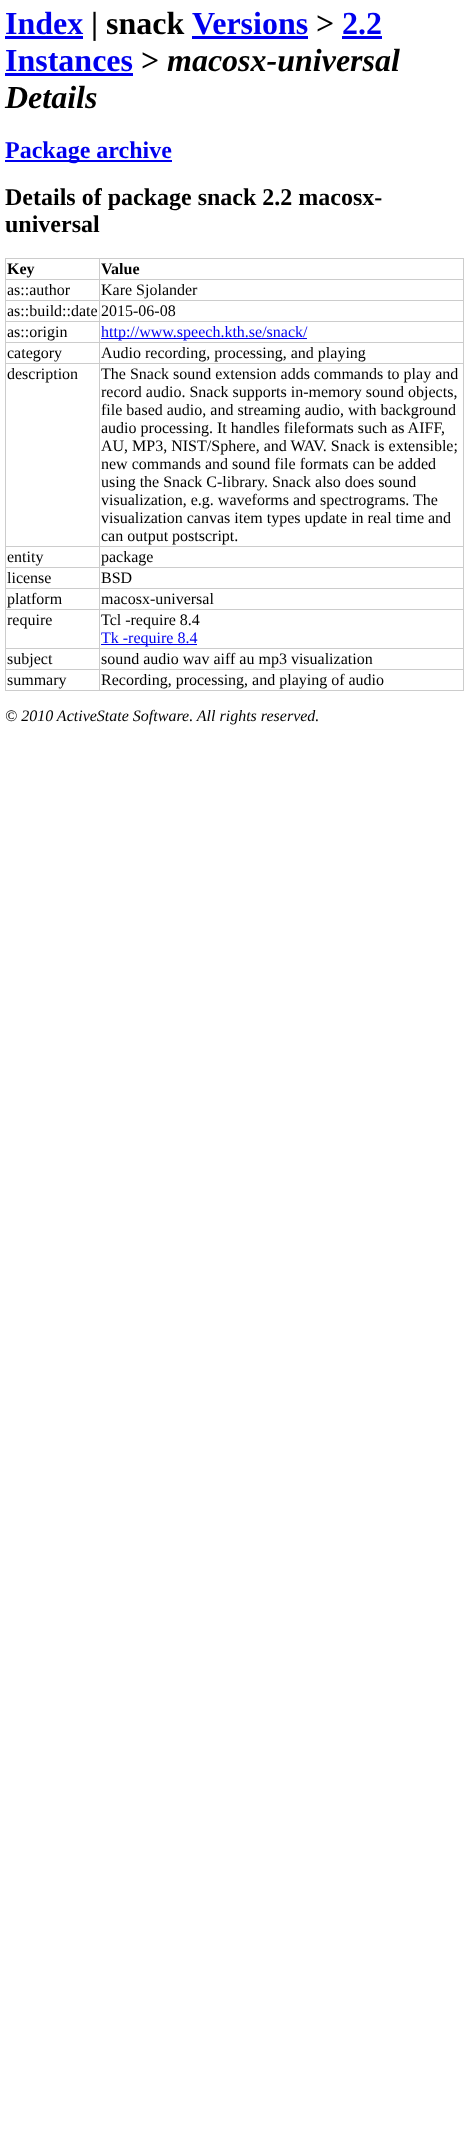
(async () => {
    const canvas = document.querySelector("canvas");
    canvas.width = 469;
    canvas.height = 2135;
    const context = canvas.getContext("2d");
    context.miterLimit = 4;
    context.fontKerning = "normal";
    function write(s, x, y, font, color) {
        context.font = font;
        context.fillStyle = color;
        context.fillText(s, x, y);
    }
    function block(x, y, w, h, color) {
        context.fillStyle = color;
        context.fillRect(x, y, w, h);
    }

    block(0, 0, 469, 2135, "rgb(255, 255, 255)");
    write("Index", 5, 34, "bold 32px Liberation Serif", "rgb(0, 0, 238)");
    block(5, 36, 78, 3, "rgb(0, 0, 238)");
    write("| snack", 91, 34, "bold 32px Liberation Serif", "rgb(0, 0, 0)");
    write("Versions", 192, 34, "bold 32px Liberation Serif", "rgb(0, 0, 238)");
    block(192, 36, 116, 3, "rgb(0, 0, 238)");
    write(">", 316, 34, "bold 32px Liberation Serif", "rgb(0, 0, 0)");
    write("2.2", 342, 34, "bold 32px Liberation Serif", "rgb(0, 0, 238)");
    block(342, 36, 40, 3, "rgb(0, 0, 238)");
    write("Instances", 5, 71, "bold 32px Liberation Serif", "rgb(0, 0, 238)");
    block(5, 73, 128, 3, "rgb(0, 0, 238)");
    write(">", 141, 71, "bold 32px Liberation Serif", "rgb(0, 0, 0)");
    write("macosx-universal", 167, 71, "italic bold 32px Liberation Serif", "rgb(0, 0, 0)");
    write("Details", 5, 108, "italic bold 32px Liberation Serif", "rgb(0, 0, 0)");
    block(5, 160, 167, 2, "rgb(0, 0, 238)");
    write("Package archive", 5, 158, "bold 24px Liberation Serif", "rgb(0, 0, 238)");
    write("Details of package snack 2.2 macosx-", 5, 205, "bold 24px Liberation Serif", "rgb(0, 0, 0)");
    write("universal", 5, 232, "bold 24px Liberation Serif", "rgb(0, 0, 0)");
    block(99, 258, 365, 1, "rgb(204, 204, 204)");
    block(99, 279, 365, 1, "rgb(204, 204, 204)");
    block(99, 300, 365, 1, "rgb(204, 204, 204)");
    block(99, 321, 365, 1, "rgb(204, 204, 204)");
    block(99, 342, 365, 1, "rgb(204, 204, 204)");
    block(99, 363, 365, 1, "rgb(204, 204, 204)");
    block(99, 546, 365, 1, "rgb(204, 204, 204)");
    block(99, 567, 365, 1, "rgb(204, 204, 204)");
    block(99, 588, 365, 1, "rgb(204, 204, 204)");
    block(99, 609, 365, 1, "rgb(204, 204, 204)");
    block(99, 648, 365, 1, "rgb(204, 204, 204)");
    block(99, 669, 365, 1, "rgb(204, 204, 204)");
    block(463, 669, 1, 22, "rgb(204, 204, 204)");
    block(99, 690, 365, 1, "rgb(204, 204, 204)");
    block(99, 669, 1, 22, "rgb(204, 204, 204)");
    block(5, 669, 95, 1, "rgb(204, 204, 204)");
    block(99, 648, 1, 22, "rgb(204, 204, 204)");
    block(5, 648, 95, 1, "rgb(204, 204, 204)");
    block(99, 609, 1, 40, "rgb(204, 204, 204)");
    block(5, 609, 95, 1, "rgb(204, 204, 204)");
    block(99, 588, 1, 22, "rgb(204, 204, 204)");
    block(5, 588, 95, 1, "rgb(204, 204, 204)");
    block(99, 567, 1, 22, "rgb(204, 204, 204)");
    block(5, 567, 95, 1, "rgb(204, 204, 204)");
    block(99, 546, 1, 22, "rgb(204, 204, 204)");
    block(5, 546, 95, 1, "rgb(204, 204, 204)");
    block(99, 363, 1, 184, "rgb(204, 204, 204)");
    block(5, 363, 95, 1, "rgb(204, 204, 204)");
    block(99, 342, 1, 22, "rgb(204, 204, 204)");
    block(5, 342, 95, 1, "rgb(204, 204, 204)");
    block(99, 321, 1, 22, "rgb(204, 204, 204)");
    block(5, 321, 95, 1, "rgb(204, 204, 204)");
    block(99, 300, 1, 22, "rgb(204, 204, 204)");
    block(5, 300, 95, 1, "rgb(204, 204, 204)");
    block(99, 279, 1, 22, "rgb(204, 204, 204)");
    block(5, 279, 95, 1, "rgb(204, 204, 204)");
    block(99, 258, 1, 22, "rgb(204, 204, 204)");
    block(5, 258, 95, 1, "rgb(204, 204, 204)");
    block(5, 690, 95, 1, "rgb(204, 204, 204)");
    block(5, 669, 1, 22, "rgb(204, 204, 204)");
    block(5, 648, 1, 22, "rgb(204, 204, 204)");
    block(5, 609, 1, 40, "rgb(204, 204, 204)");
    block(5, 588, 1, 22, "rgb(204, 204, 204)");
    block(5, 567, 1, 22, "rgb(204, 204, 204)");
    block(5, 546, 1, 22, "rgb(204, 204, 204)");
    block(5, 363, 1, 184, "rgb(204, 204, 204)");
    block(5, 342, 1, 22, "rgb(204, 204, 204)");
    block(5, 321, 1, 22, "rgb(204, 204, 204)");
    block(5, 300, 1, 22, "rgb(204, 204, 204)");
    block(5, 279, 1, 22, "rgb(204, 204, 204)");
    block(5, 258, 1, 22, "rgb(204, 204, 204)");
    write("Key", 7, 274, "bold 16px Liberation Serif", "rgb(0, 0, 0)");
    block(463, 648, 1, 22, "rgb(204, 204, 204)");
    block(463, 609, 1, 40, "rgb(204, 204, 204)");
    block(463, 588, 1, 22, "rgb(204, 204, 204)");
    block(463, 567, 1, 22, "rgb(204, 204, 204)");
    block(463, 546, 1, 22, "rgb(204, 204, 204)");
    block(463, 363, 1, 184, "rgb(204, 204, 204)");
    block(463, 342, 1, 22, "rgb(204, 204, 204)");
    block(463, 321, 1, 22, "rgb(204, 204, 204)");
    block(463, 300, 1, 22, "rgb(204, 204, 204)");
    block(463, 279, 1, 22, "rgb(204, 204, 204)");
    block(463, 258, 1, 22, "rgb(204, 204, 204)");
    write("Value", 101, 274, "bold 16px Liberation Serif", "rgb(0, 0, 0)");
    write("as::author", 7, 295, "16px Liberation Serif", "rgb(0, 0, 0)");
    write("Kare Sjolander", 101, 295, "16px Liberation Serif", "rgb(0, 0, 0)");
    write("as::build::date", 7, 316, "16px Liberation Serif", "rgb(0, 0, 0)");
    write("2015-06-08", 101, 316, "16px Liberation Serif", "rgb(0, 0, 0)");
    write("as::origin", 7, 337, "16px Liberation Serif", "rgb(0, 0, 0)");
    block(101, 338, 206, 1, "rgb(0, 0, 238)");
    write("http://www.speech.kth.se/snack/", 101, 337, "16px Liberation Serif", "rgb(0, 0, 238)");
    write("category", 7, 358, "16px Liberation Serif", "rgb(0, 0, 0)");
    write("Audio recording, processing, and playing", 101, 358, "16px Liberation Serif", "rgb(0, 0, 0)");
    write("description", 7, 379, "16px Liberation Serif", "rgb(0, 0, 0)");
    write("The Snack sound extension adds commands to play and", 101, 379, "16px Liberation Serif", "rgb(0, 0, 0)");
    write("record audio. Snack supports in-memory sound objects,", 101, 397, "16px Liberation Serif", "rgb(0, 0, 0)");
    write("file based audio, and streaming audio, with background", 101, 415, "16px Liberation Serif", "rgb(0, 0, 0)");
    write("audio processing. It handles fileformats such as AIFF,", 101, 433, "16px Liberation Serif", "rgb(0, 0, 0)");
    write("AU, MP3, NIST/Sphere, and WAV. Snack is extensible;", 101, 451, "16px Liberation Serif", "rgb(0, 0, 0)");
    write("new commands and sound file formats can be added", 101, 469, "16px Liberation Serif", "rgb(0, 0, 0)");
    write("using the Snack C-library. Snack also does sound", 101, 487, "16px Liberation Serif", "rgb(0, 0, 0)");
    write("visualization, e.g. waveforms and spectrograms. The", 101, 505, "16px Liberation Serif", "rgb(0, 0, 0)");
    write("visualization canvas item types update in real time and", 101, 523, "16px Liberation Serif", "rgb(0, 0, 0)");
    write("can output postscript.", 101, 541, "16px Liberation Serif", "rgb(0, 0, 0)");
    write("entity", 7, 562, "16px Liberation Serif", "rgb(0, 0, 0)");
    write("package", 101, 562, "16px Liberation Serif", "rgb(0, 0, 0)");
    write("license", 7, 583, "16px Liberation Serif", "rgb(0, 0, 0)");
    write("BSD", 101, 583, "16px Liberation Serif", "rgb(0, 0, 0)");
    write("platform", 7, 604, "16px Liberation Serif", "rgb(0, 0, 0)");
    write("macosx-universal", 101, 604, "16px Liberation Serif", "rgb(0, 0, 0)");
    write("require", 7, 625, "16px Liberation Serif", "rgb(0, 0, 0)");
    write("Tcl -require 8.4", 101, 625, "16px Liberation Serif", "rgb(0, 0, 0)");
    block(101, 644, 96, 1, "rgb(0, 0, 238)");
    write("Tk -require 8.4", 101, 643, "16px Liberation Serif", "rgb(0, 0, 238)");
    write("subject", 7, 664, "16px Liberation Serif", "rgb(0, 0, 0)");
    write("sound audio wav aiff au mp3 visualization", 101, 664, "16px Liberation Serif", "rgb(0, 0, 0)");
    write("summary", 7, 685, "16px Liberation Serif", "rgb(0, 0, 0)");
    write("Recording, processing, and playing of audio", 101, 685, "16px Liberation Serif", "rgb(0, 0, 0)");
    write("© 2010 ActiveState Software. All rights reserved.", 5, 721, "italic 16px Liberation Serif", "rgb(0, 0, 0)");
})();
